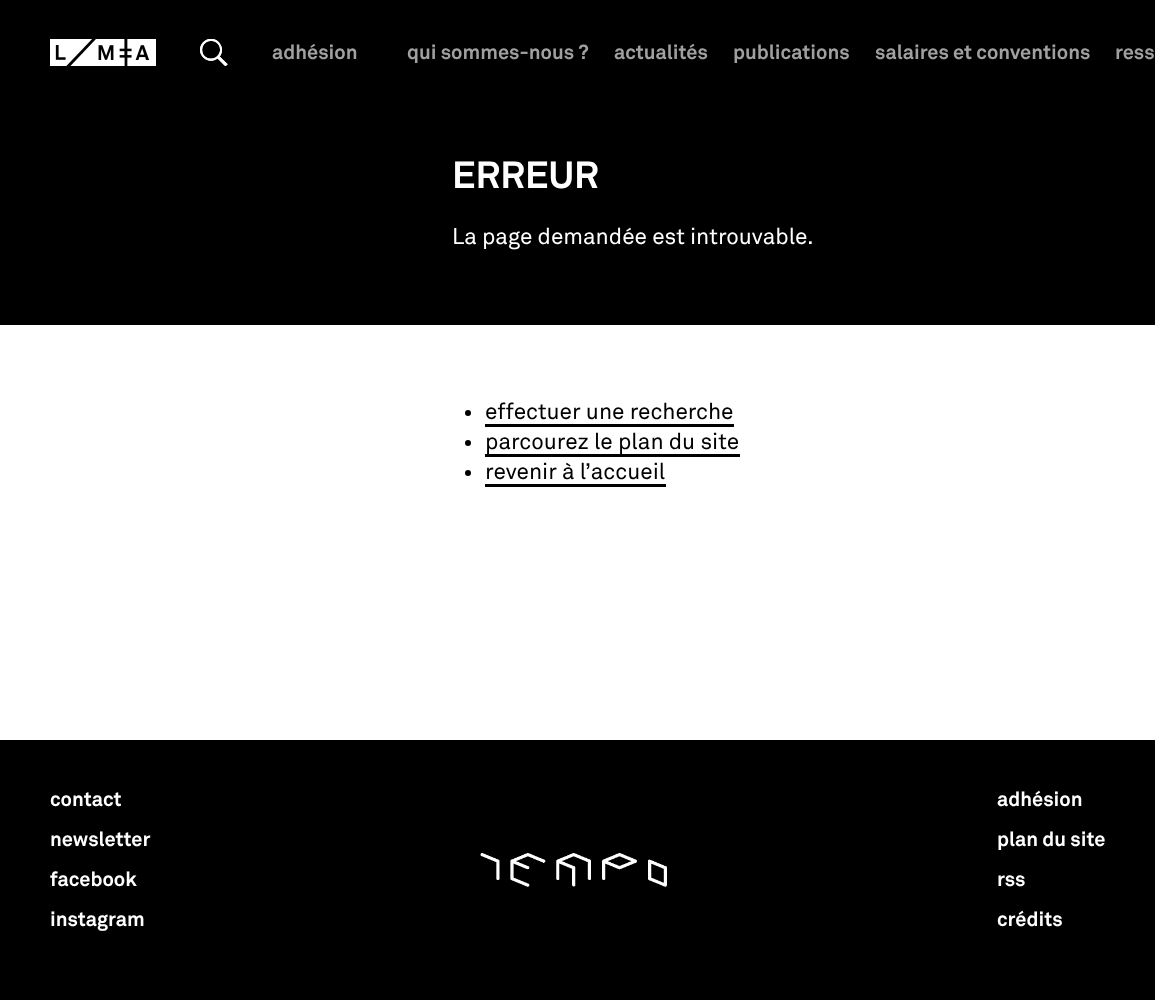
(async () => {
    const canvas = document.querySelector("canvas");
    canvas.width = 1155;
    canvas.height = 1000;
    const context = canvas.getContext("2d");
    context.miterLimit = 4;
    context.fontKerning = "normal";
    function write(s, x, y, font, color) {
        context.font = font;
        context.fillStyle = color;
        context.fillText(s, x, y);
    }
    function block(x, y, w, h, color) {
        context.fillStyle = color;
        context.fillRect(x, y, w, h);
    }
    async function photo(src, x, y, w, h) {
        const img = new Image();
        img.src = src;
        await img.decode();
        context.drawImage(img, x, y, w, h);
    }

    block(0, 0, 1155, 1000, "rgb(0, 0, 0)");
    await photo("media/1.png", 50, 39, 106, 27);
    await photo("media/2.png", 200, 39, 28, 27);
    write("adhésion", 272, 59, "bold 20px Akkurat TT", "rgb(160, 160, 160)");
    write("qui sommes-nous ?", 407, 59, "bold 20px Akkurat TT", "rgb(160, 160, 160)");
    write("actualités", 614, 59, "bold 20px Akkurat TT", "rgb(160, 160, 160)");
    write("publications", 733, 59, "bold 20px Akkurat TT", "rgb(160, 160, 160)");
    write("salaires et conventions", 875, 59, "bold 20px Akkurat TT", "rgb(160, 160, 160)");
    write("ress", 1115, 59, "bold 20px Akkurat TT", "rgb(160, 160, 160)");
    block(0, 325, 1155, 415, "rgb(255, 255, 255)");
    write("ERREUR", 452, 188, "bold 37.5px Akkurat TT", "rgb(255, 255, 255)");
    write("La page demandée est introuvable.", 452, 244, "22.5px Akkurat TT", "rgb(255, 255, 255)");
    context.fillStyle = "rgb(0, 0, 0)";
    context.beginPath();
    context.arc(468, 413, 3, 0, Math.PI * 2);
    context.fill();
    write("effectuer une recherche", 485, 419, "22.5px Akkurat TT", "rgb(0, 0, 0)");
    block(485, 424, 249, 3, "rgb(0, 0, 0)");
    context.beginPath();
    context.arc(468, 443, 3, 0, Math.PI * 2);
    context.fill();
    write("parcourez le plan du site", 485, 449, "22.5px Akkurat TT", "rgb(0, 0, 0)");
    block(485, 454, 255, 3, "rgb(0, 0, 0)");
    context.beginPath();
    context.arc(468, 473, 3, 0, Math.PI * 2);
    context.fill();
    write("revenir à l’accueil", 485, 479, "22.5px Akkurat TT", "rgb(0, 0, 0)");
    block(485, 484, 181, 3, "rgb(0, 0, 0)");
    write("contact", 50, 806, "bold 20px Akkurat TT", "rgb(255, 255, 255)");
    write("newsletter", 50, 846, "bold 20px Akkurat TT", "rgb(255, 255, 255)");
    write("facebook", 50, 886, "bold 20px Akkurat TT", "rgb(255, 255, 255)");
    write("instagram", 50, 926, "bold 20px Akkurat TT", "rgb(255, 255, 255)");
    await photo("media/3.png", 480, 853, 187, 34);
    write("adhésion", 997, 806, "bold 20px Akkurat TT", "rgb(255, 255, 255)");
    write("plan du site", 997, 846, "bold 20px Akkurat TT", "rgb(255, 255, 255)");
    write("rss", 997, 886, "bold 20px Akkurat TT", "rgb(255, 255, 255)");
    write("crédits", 997, 926, "bold 20px Akkurat TT", "rgb(255, 255, 255)");
})();
